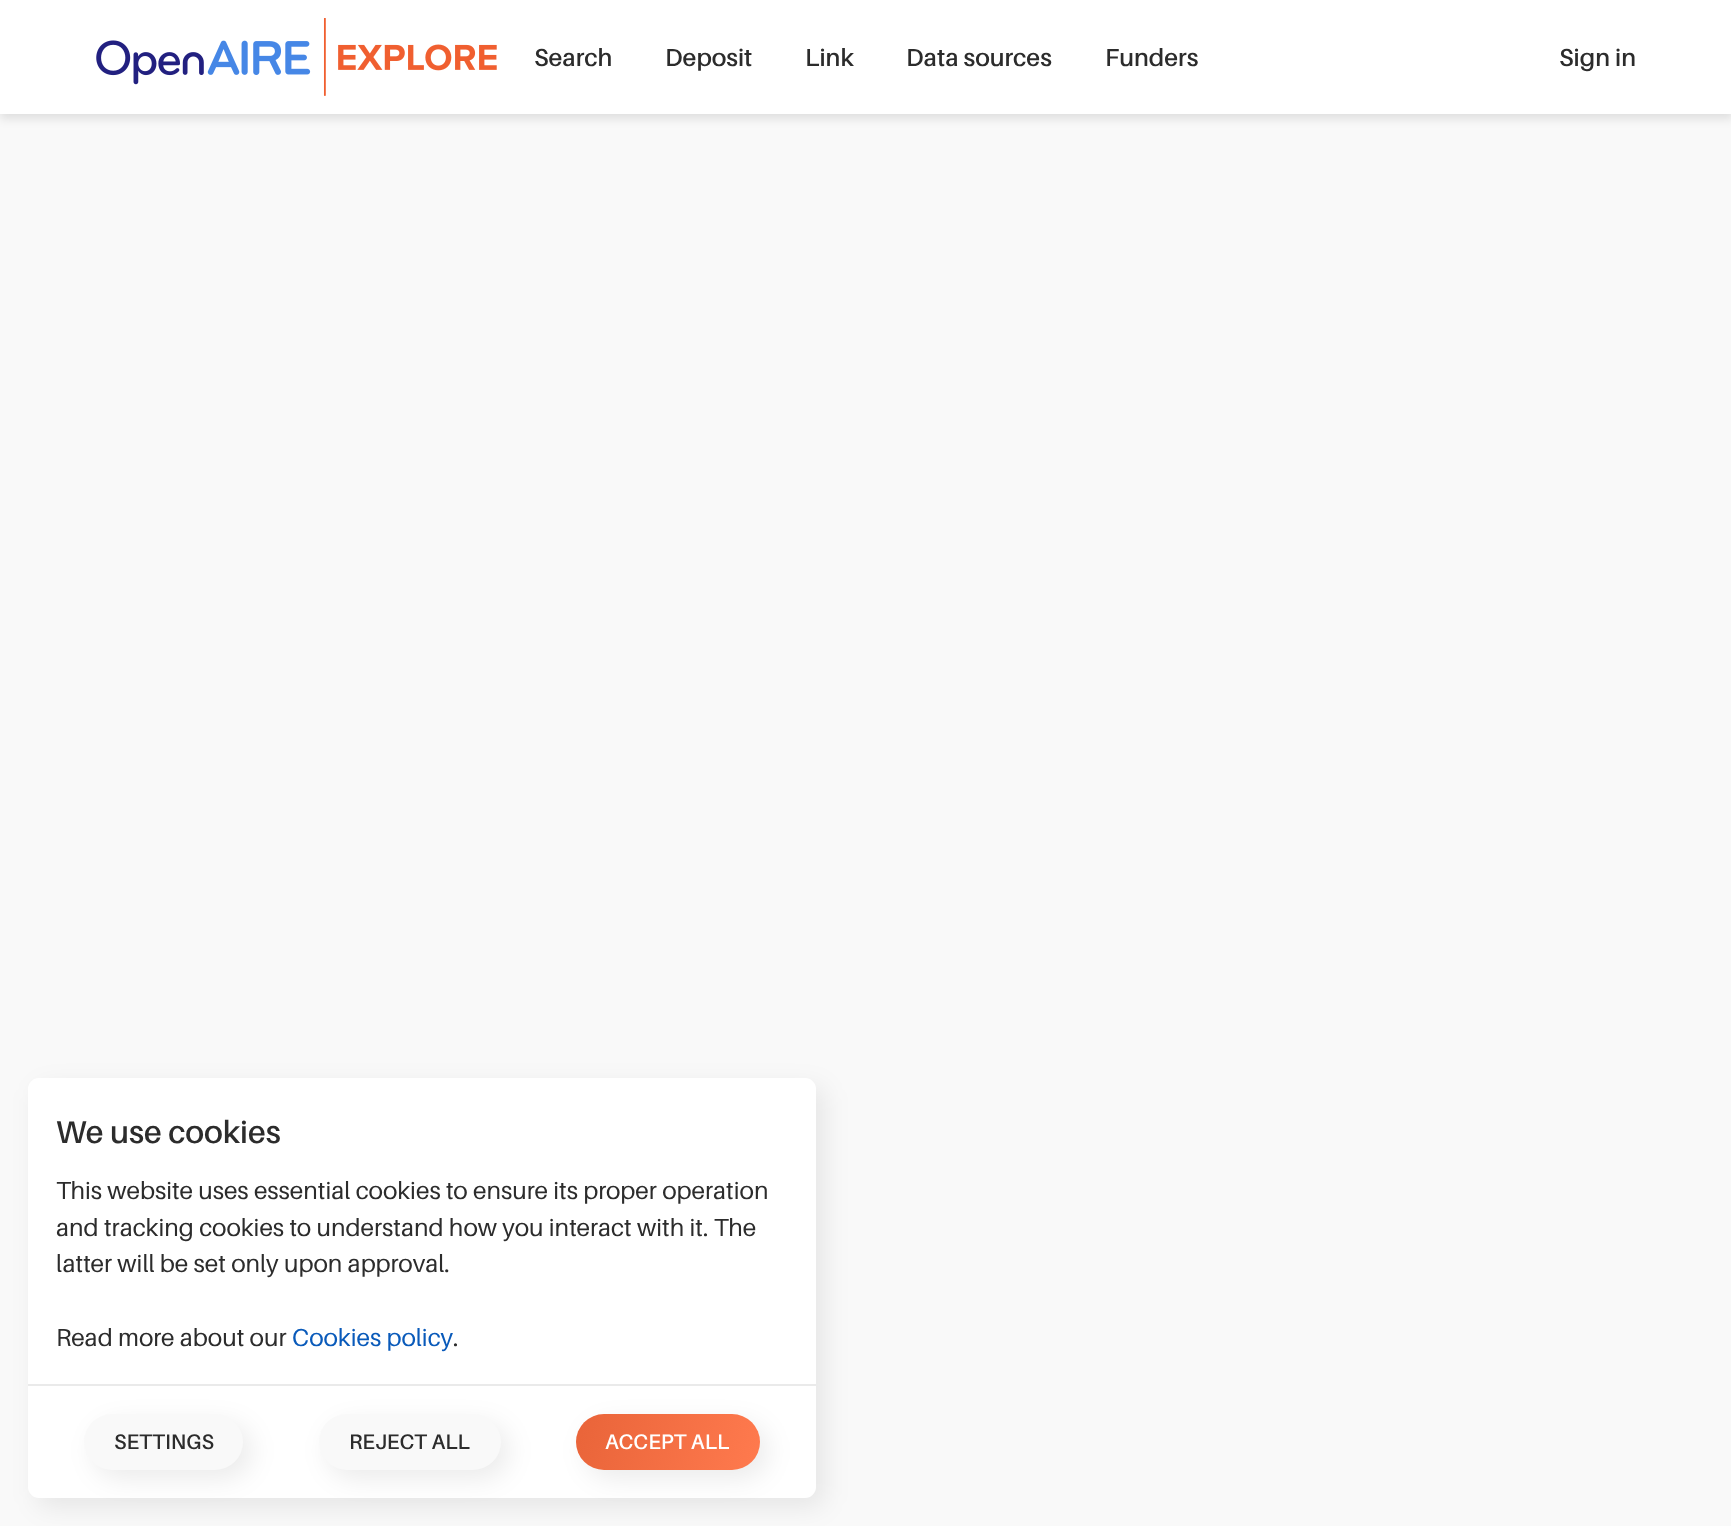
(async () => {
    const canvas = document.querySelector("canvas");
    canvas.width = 1731;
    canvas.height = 1526;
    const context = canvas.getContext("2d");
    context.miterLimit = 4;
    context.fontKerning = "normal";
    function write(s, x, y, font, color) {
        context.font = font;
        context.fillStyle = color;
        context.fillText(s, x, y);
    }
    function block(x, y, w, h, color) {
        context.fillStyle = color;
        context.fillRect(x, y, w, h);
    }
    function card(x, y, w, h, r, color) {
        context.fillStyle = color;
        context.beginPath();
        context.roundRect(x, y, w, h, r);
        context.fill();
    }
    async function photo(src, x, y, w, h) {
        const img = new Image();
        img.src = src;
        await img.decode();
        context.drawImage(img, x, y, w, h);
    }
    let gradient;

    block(0, 0, 1731, 1526, "rgb(249, 249, 249)");
    context.fillStyle = "rgba(0, 0, 0, 0.1)";
    context.filter = "blur(5px)";
    context.beginPath();
    context.rect(0, 5, 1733, 114);
    context.fill();
    context.filter = "none";
    block(0, 0, 1731, 114, "rgb(255, 255, 255)");
    await photo("media/1.png", 96, 18, 401, 78);
    write("Search", 534, 66, "600 24.5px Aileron", "rgb(44, 44, 44)");
    write("Deposit", 665, 66, "600 24.5px Aileron", "rgb(44, 44, 44)");
    write("Link", 805, 66, "600 24.5px Aileron", "rgb(44, 44, 44)");
    write("Data sources", 906, 66, "600 24.5px Aileron", "rgb(44, 44, 44)");
    write("Funders", 1105, 66, "600 24.5px Aileron", "rgb(44, 44, 44)");
    write("Sign in", 1559, 66, "600 24.5px Aileron", "rgb(44, 44, 44)");
    context.fillStyle = "rgba(0, 0, 0, 0.08)";
    context.filter = "blur(13px)";
    context.beginPath();
    context.roundRect(37, 1087, 787, 420, 11);
    context.fill();
    context.filter = "none";
    card(28, 1078, 788, 420, 11, "rgb(255, 255, 255)");
    write("We use cookies", 56, 1143, "600 31.5px Aileron", "rgb(44, 44, 44)");
    write("This website uses essential cookies to ensure its proper operation", 56, 1199, "24.5px Aileron", "rgb(44, 44, 44)");
    write("and tracking cookies to understand how you interact with it. The", 56, 1236, "24.5px Aileron", "rgb(44, 44, 44)");
    write("latter will be set only upon approval.", 56, 1272, "24.5px Aileron", "rgb(44, 44, 44)");
    write("Read more about our", 56, 1346, "24.5px Aileron", "rgb(44, 44, 44)");
    write("Cookies policy", 292, 1346, "24.5px Aileron", "rgb(9, 90, 186)");
    write(".", 453, 1346, "24.5px Aileron", "rgb(44, 44, 44)");
    block(28, 1384, 788, 2, "rgb(234, 234, 234)");
    context.fillStyle = "rgba(0, 0, 0, 0.08)";
    context.filter = "blur(13px)";
    context.beginPath();
    context.roundRect(93, 1423, 159, 56, 28);
    context.fill();
    context.filter = "none";
    card(84, 1414, 159, 56, 28, "rgb(249, 249, 249)");
    write("SETTINGS", 114, 1449, "600 21px Aileron", "rgb(44, 44, 44)");
    context.fillStyle = "rgba(0, 0, 0, 0.08)";
    context.filter = "blur(13px)";
    context.beginPath();
    context.roundRect(327, 1423, 182, 56, 28);
    context.fill();
    context.filter = "none";
    card(319, 1414, 182, 56, 28, "rgb(249, 249, 249)");
    write("REJECT ALL", 349, 1449, "600 21px Aileron", "rgb(44, 44, 44)");
    context.fillStyle = "rgba(0, 0, 0, 0.08)";
    context.filter = "blur(13px)";
    context.beginPath();
    context.roundRect(585, 1423, 183, 56, 28);
    context.fill();
    context.filter = "none";
    gradient = context.createLinearGradient(575, 1419, 761, 1465);
    gradient.addColorStop(0, "rgb(233, 100, 57)");
    gradient.addColorStop(1, "rgb(255, 122, 78)");
    context.fillStyle = gradient;
    context.beginPath();
    context.roundRect(576, 1414, 184, 56, 28);
    context.fill();
    write("ACCEPT ALL", 605, 1449, "600 21px Aileron", "rgb(255, 255, 255)");
})();
